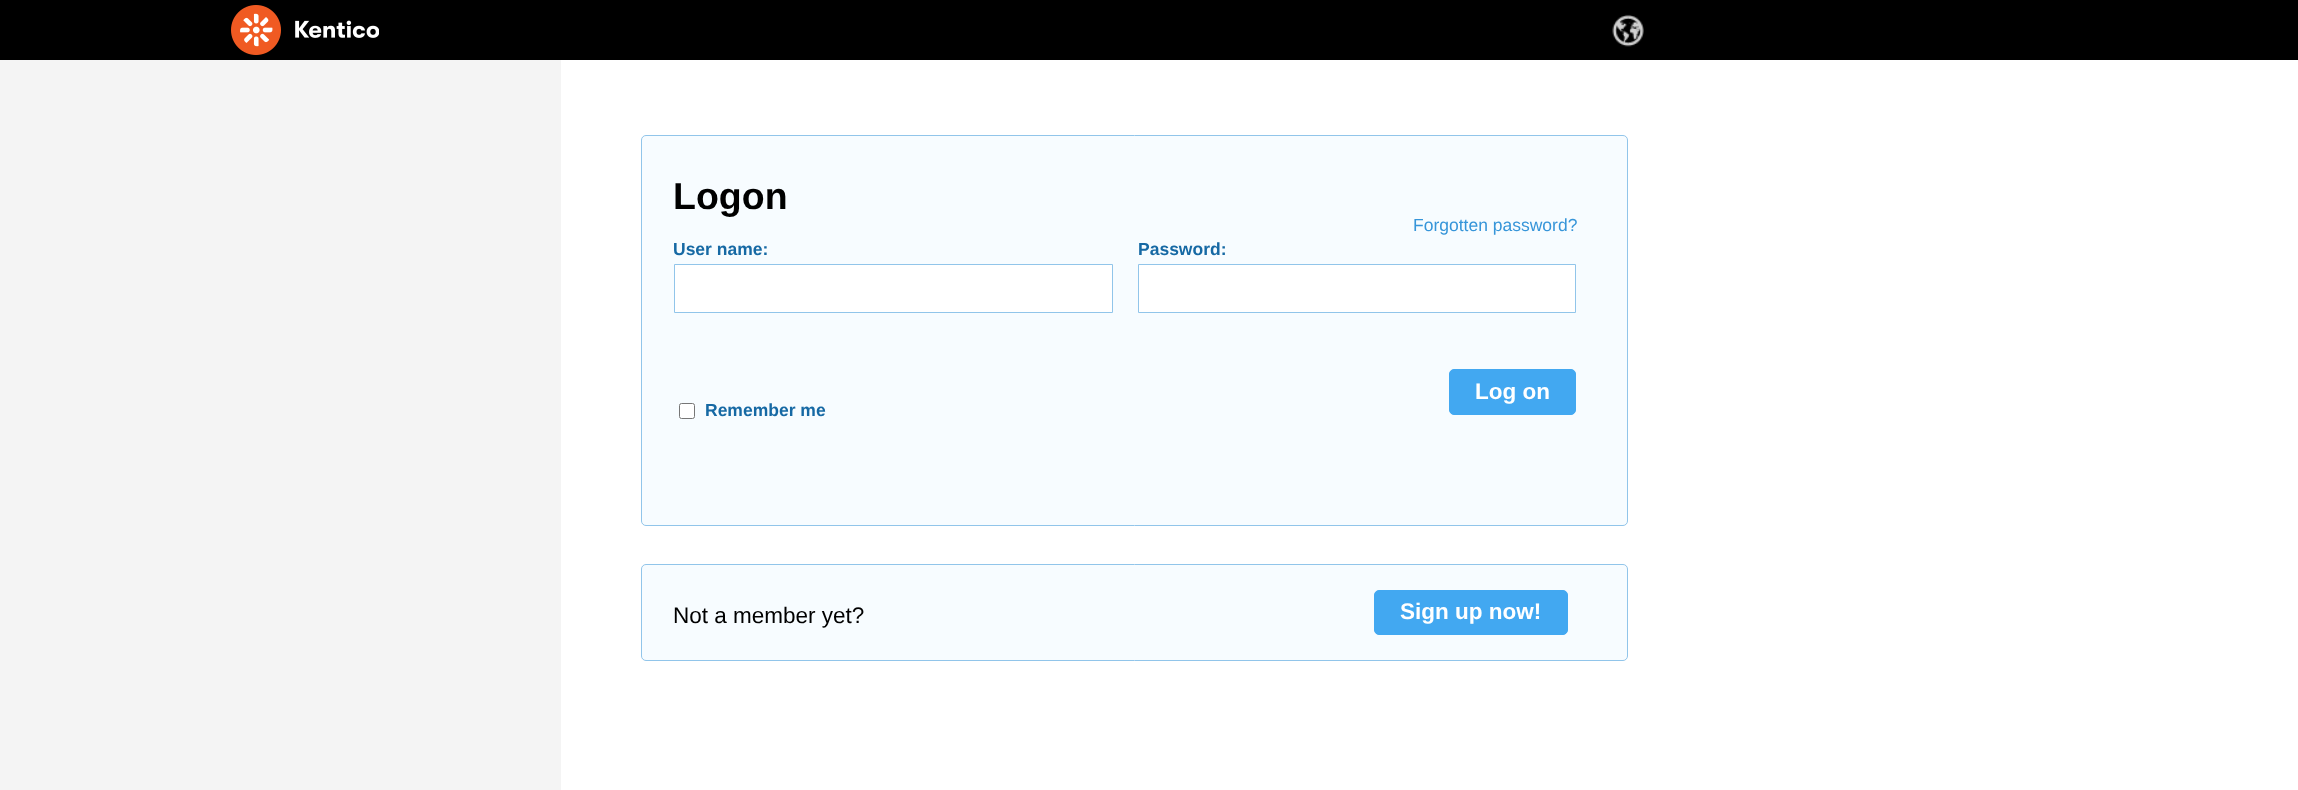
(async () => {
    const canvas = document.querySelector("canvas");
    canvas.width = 2298;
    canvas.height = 790;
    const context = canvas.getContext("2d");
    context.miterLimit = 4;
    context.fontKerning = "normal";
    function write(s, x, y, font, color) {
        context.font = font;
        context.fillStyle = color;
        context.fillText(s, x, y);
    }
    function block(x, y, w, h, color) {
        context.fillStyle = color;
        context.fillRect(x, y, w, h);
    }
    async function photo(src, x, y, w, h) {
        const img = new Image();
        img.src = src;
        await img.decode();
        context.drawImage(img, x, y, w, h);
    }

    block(0, 0, 2298, 790, "rgb(255, 255, 255)");
    block(0, 0, 2298, 60, "rgb(0, 0, 0)");
    await photo("media/1.png", 231, 5, 148, 50);
    await photo("media/2.png", 1612, 14, 32, 33);
    block(0, 60, 561, 730, "rgb(244, 244, 244)");
    context.fillStyle = "rgb(247, 252, 255)";
    context.beginPath();
    context.roundRect(641.5, 135.5, 986, 390, 4.5);
    context.fill();
    context.strokeStyle = "rgb(145, 197, 234)";
    context.stroke();
    write("Logon", 673, 209, "bold 37.5px Liberation Sans", "rgb(0, 0, 0)");
    write("Forgotten password?", 1413, 231, "17.5px Liberation Sans", "rgb(54, 149, 217)");
    write("User name:", 673, 255, "bold 17.5px Liberation Sans", "rgb(22, 105, 164)");
    context.fillStyle = "rgb(255, 255, 255)";
    context.beginPath();
    context.rect(674.5, 264.5, 438, 48);
    context.fill();
    context.stroke();
    context.beginPath();
    context.roundRect(679.5, 403.5, 15, 15, 2);
    context.fill();
    context.strokeStyle = "rgb(118, 118, 118)";
    context.stroke();
    write("Remember me", 705, 416, "bold 17.5px Liberation Sans", "rgb(22, 105, 164)");
    write("Password:", 1138, 255, "bold 17.5px Liberation Sans", "rgb(22, 105, 164)");
    context.fillStyle = "rgb(255, 255, 255)";
    context.beginPath();
    context.rect(1138.5, 264.5, 437, 48);
    context.fill();
    context.strokeStyle = "rgb(145, 197, 234)";
    context.stroke();
    context.fillStyle = "rgb(66, 168, 241)";
    context.beginPath();
    context.roundRect(1449.5, 369.5, 126, 45, 4.5);
    context.fill();
    context.strokeStyle = "rgb(66, 168, 241)";
    context.stroke();
    write("Log on", 1475, 399, "bold 22.5px Liberation Sans", "rgb(255, 255, 255)");
    context.fillStyle = "rgb(247, 252, 255)";
    context.beginPath();
    context.roundRect(641.5, 564.5, 986, 96, 4.5);
    context.fill();
    context.strokeStyle = "rgb(145, 197, 234)";
    context.stroke();
    write("Not a member yet?", 673, 623, "22.5px Liberation Sans", "rgb(0, 0, 0)");
    context.fillStyle = "rgb(66, 168, 241)";
    context.beginPath();
    context.roundRect(1374.5, 590.5, 193, 44, 4.5);
    context.fill();
    context.strokeStyle = "rgb(66, 168, 241)";
    context.stroke();
    write("Sign up now!", 1400, 619, "bold 22.5px Liberation Sans", "rgb(255, 255, 255)");
})();
